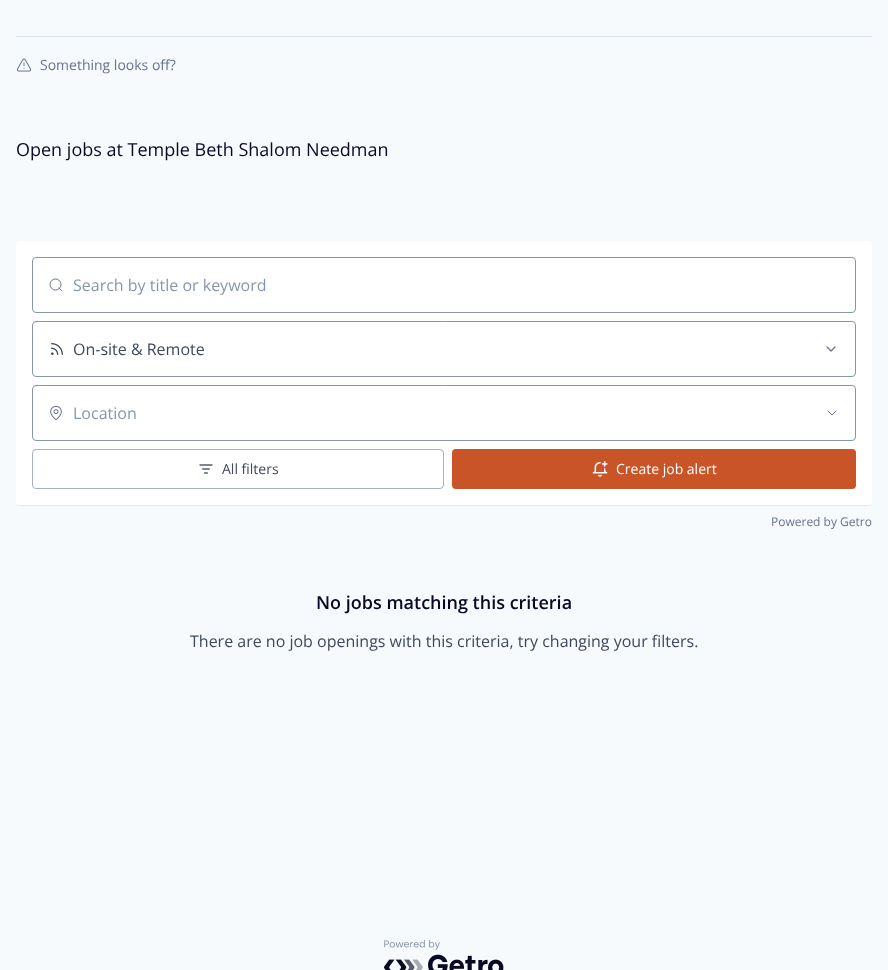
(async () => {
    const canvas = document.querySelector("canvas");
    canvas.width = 888;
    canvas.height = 970;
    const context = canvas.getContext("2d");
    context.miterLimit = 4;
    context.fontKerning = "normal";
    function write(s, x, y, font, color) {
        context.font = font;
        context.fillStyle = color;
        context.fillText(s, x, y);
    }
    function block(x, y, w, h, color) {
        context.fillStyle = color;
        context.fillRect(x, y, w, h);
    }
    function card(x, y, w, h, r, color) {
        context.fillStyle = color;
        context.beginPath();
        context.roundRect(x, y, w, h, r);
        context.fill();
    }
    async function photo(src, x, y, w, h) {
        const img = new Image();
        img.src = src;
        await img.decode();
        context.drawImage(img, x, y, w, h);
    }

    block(0, 0, 888, 970, "rgb(247, 250, 252)");
    block(16, 36, 856, 1, "rgb(222, 228, 237)");
    await photo("media/1.png", 16, 58, 16, 14);
    write("Something looks off?", 40, 70, "14px Open Sans", "rgb(103, 115, 139)");
    write("Open jobs at Temple Beth Shalom Needman", 16, 156, "18px Open Sans", "rgb(9, 9, 37)");
    context.fillStyle = "rgb(232, 235, 237)";
    context.beginPath();
    context.moveTo(16, 501);
    context.bezierCurveTo(16, 504, 17, 506, 20, 506);
    context.lineTo(868, 506);
    context.bezierCurveTo(871, 506, 872, 504, 872, 501);
    context.bezierCurveTo(872, 503, 870, 505, 868, 505);
    context.lineTo(20, 505);
    context.bezierCurveTo(18, 505, 16, 503, 16, 501);
    context.closePath();
    context.fill();
    card(16, 241, 856, 264, 4, "rgb(255, 255, 255)");
    context.beginPath();
    context.roundRect(32.5, 257.5, 823, 55, 3.5);
    context.strokeStyle = "rgb(135, 151, 171)";
    context.stroke();
    context.beginPath();
    context.arc(55.5, 284.5, 5.5, 0, Math.PI * 2);
    context.strokeStyle = "rgb(103, 115, 139)";
    context.stroke();
    context.beginPath();
    context.moveTo(62, 291);
    context.lineTo(59, 288);
    context.lineCap = "round";
    context.lineJoin = "round";
    context.stroke();
    write("Search by title or keyword", 73, 291, "16px Open Sans", "rgb(135, 151, 171)");
    context.beginPath();
    context.roundRect(32.5, 321.5, 823, 55, 3.5);
    context.strokeStyle = "rgb(135, 151, 171)";
    context.lineJoin = "miter";
    context.stroke();
    await photo("media/2.png", 51, 343, 12, 12);
    write("On-site & Remote", 73, 355, "16px Open Sans", "rgb(63, 73, 90)");
    context.beginPath();
    context.moveTo(827, 347);
    context.lineTo(831, 351);
    context.lineTo(835, 347);
    context.strokeStyle = "rgb(103, 115, 139)";
    context.lineWidth = 1.3;
    context.lineJoin = "round";
    context.stroke();
    context.beginPath();
    context.roundRect(32.5, 385.5, 823, 55, 3.5);
    context.strokeStyle = "rgb(135, 151, 171)";
    context.lineWidth = 1;
    context.lineJoin = "miter";
    context.stroke();
    await photo("media/3.png", 50, 405, 12, 16);
    write("Location", 73, 419, "16px Open Sans", "rgb(135, 151, 171)");
    context.beginPath();
    context.moveTo(828, 411);
    context.lineTo(832, 415);
    context.lineTo(836, 411);
    context.strokeStyle = "rgb(103, 115, 139)";
    context.lineJoin = "round";
    context.stroke();
    context.beginPath();
    context.roundRect(32.5, 449.5, 411, 39, 3.5);
    context.strokeStyle = "rgb(163, 177, 194)";
    context.lineJoin = "miter";
    context.stroke();
    await photo("media/4.png", 199, 464, 14, 10);
    write("All filters", 222, 474, "14px Open Sans", "rgb(63, 73, 90)");
    card(452, 449, 404, 40, 4, "rgb(201, 84, 39)");
    await photo("media/5.png", 592, 461, 16, 16);
    write("Create job alert", 616, 474, "14px Open Sans", "rgb(255, 255, 255)");
    write("Powered by Getro", 771, 526, "12px Open Sans", "rgb(103, 115, 139)");
    write("No jobs matching this criteria", 316, 609, "600 18px Open Sans", "rgb(9, 9, 37)");
    write("There are no job openings with this criteria, try changing your filters.", 190, 647, "16px Open Sans", "rgb(63, 73, 90)");
    await photo("media/6.png", 384, 940, 120, 30);
})();
